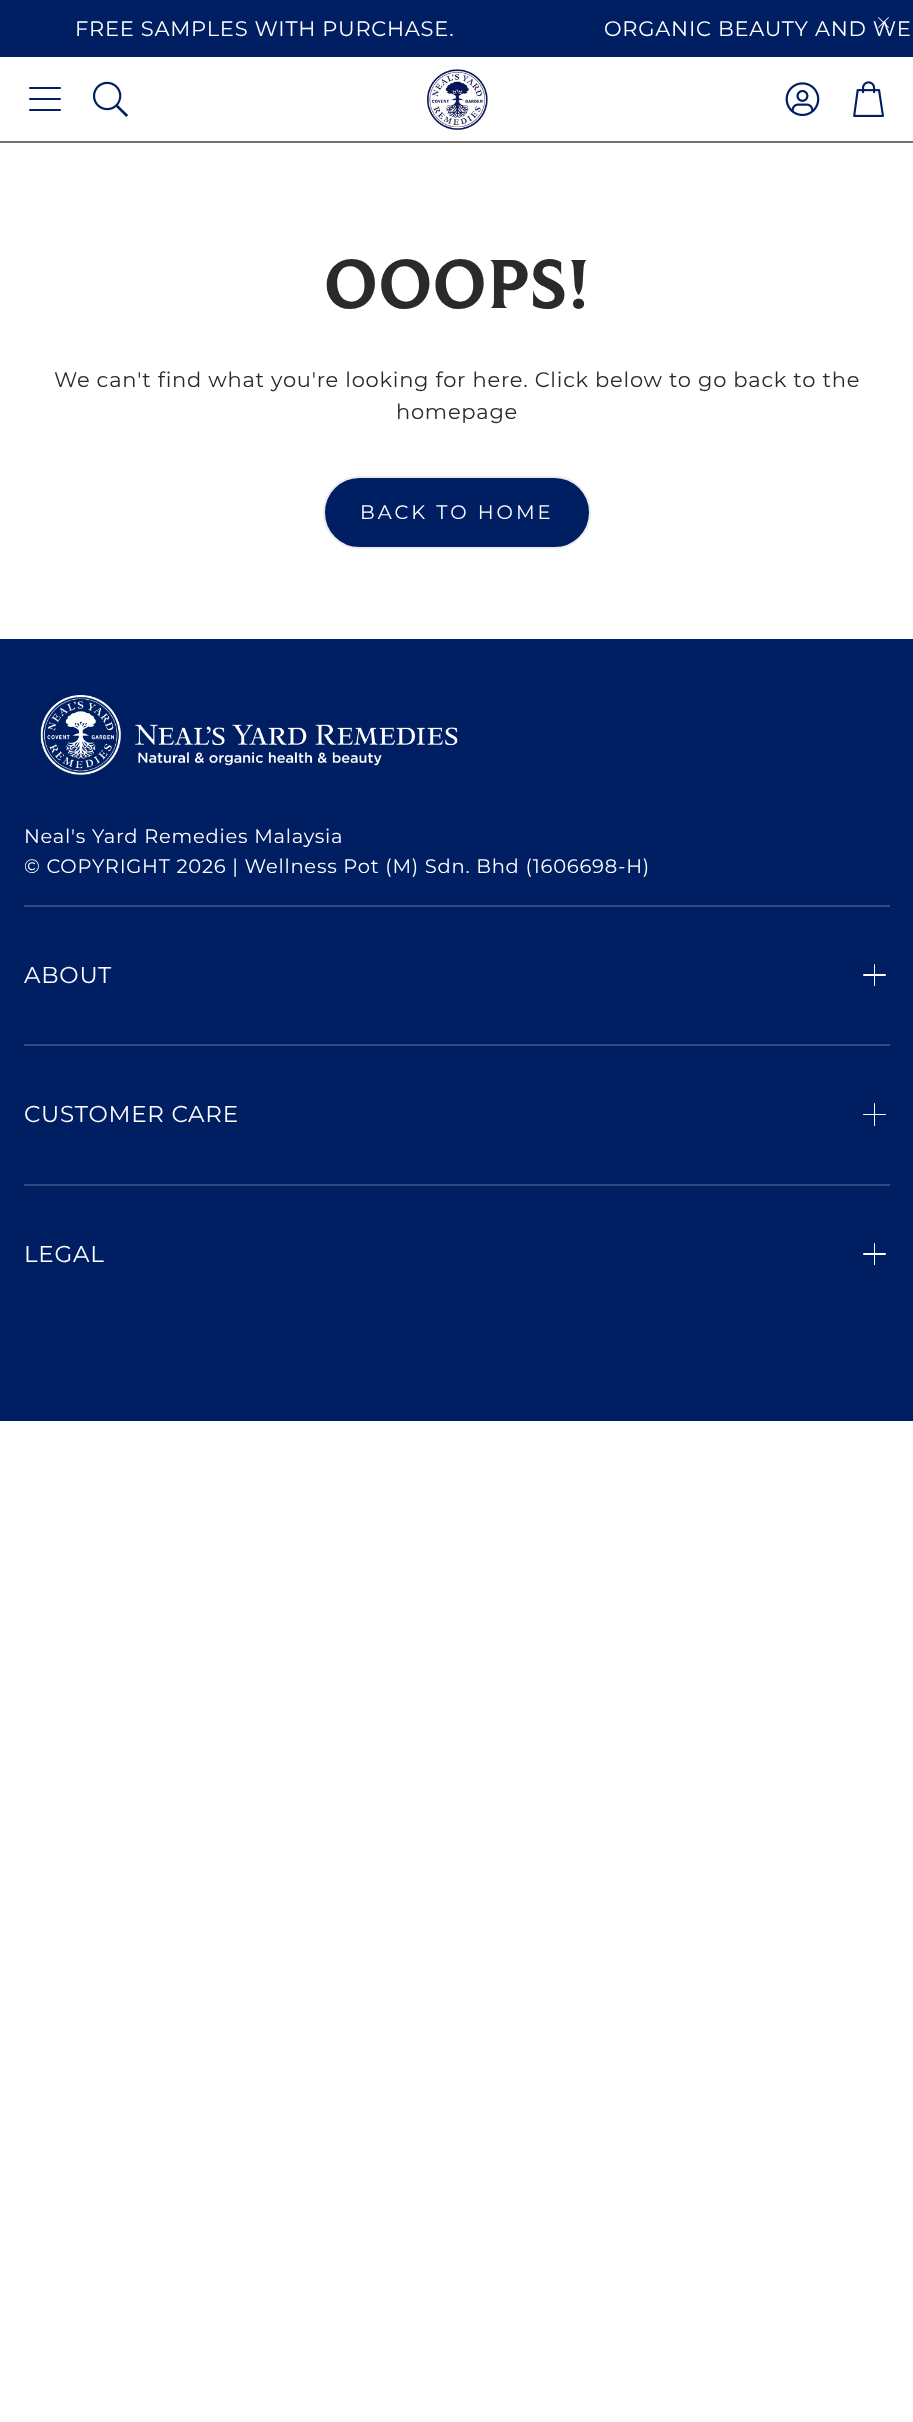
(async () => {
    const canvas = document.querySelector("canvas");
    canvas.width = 913;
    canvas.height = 2422;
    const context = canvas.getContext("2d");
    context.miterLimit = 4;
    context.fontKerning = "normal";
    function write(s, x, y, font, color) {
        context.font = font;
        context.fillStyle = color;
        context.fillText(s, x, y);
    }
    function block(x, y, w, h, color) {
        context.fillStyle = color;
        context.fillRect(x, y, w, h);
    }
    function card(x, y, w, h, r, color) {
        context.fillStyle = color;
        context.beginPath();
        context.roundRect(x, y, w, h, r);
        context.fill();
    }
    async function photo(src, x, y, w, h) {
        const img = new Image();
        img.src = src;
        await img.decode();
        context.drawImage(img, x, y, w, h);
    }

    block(0, 0, 913, 2422, "rgb(255, 255, 255)");
    block(0, 0, 913, 57, "rgb(0, 30, 98)");
    context.letterSpacing = "0.75px";
    write("ORGANIC BEAUTY AND WE", 604, 36, "21px Montserrat", "rgb(255, 255, 255)");
    await photo("media/1.png", 878, 17, 11, 11);
    write("FREE SAMPLES WITH PURCHASE.", 75, 36, "21px Montserrat", "rgb(255, 255, 255)");
    block(0, 141, 913, 2, "rgb(113, 113, 113)");
    card(29, 87, 32, 2, 1, "rgb(0, 30, 98)");
    card(29, 98, 32, 2, 1, "rgb(0, 30, 98)");
    card(29, 109, 32, 2, 1, "rgb(0, 30, 98)");
    await photo("media/2.png", 92, 81, 36, 36);
    await photo("media/3.png", 426, 69, 62, 61);
    await photo("media/4.png", 785, 82, 35, 34);
    await photo("media/5.png", 853, 81, 31, 36);
    write("OOOPS!", 324, 308, "bold 72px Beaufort", "rgb(44, 42, 41)");
    write("We can't find what you're looking for here. Click below to go back to the", 54, 387, "21px Montserrat", "rgb(44, 42, 41)");
    write("homepage", 396, 419, "21px Montserrat", "rgb(44, 42, 41)");
    context.fillStyle = "rgb(0, 30, 98)";
    context.beginPath();
    context.roundRect(324, 477, 266, 71, 35.5);
    context.fill();
    context.strokeStyle = "rgb(236, 236, 236)";
    context.lineWidth = 2;
    context.stroke();
    context.letterSpacing = "3px";
    write("BACK TO HOME", 360, 519, "19.5px Montserrat", "rgb(255, 255, 255)");
    block(0, 639, 913, 782, "rgb(0, 30, 98)");
    await photo("media/6.png", 40, 695, 418, 80);
    context.letterSpacing = "0.75px";
    write("Neal's Yard Remedies Malaysia", 24, 843, "19.5px Montserrat", "rgb(255, 255, 255)");
    write("© COPYRIGHT 2026 | Wellness Pot (M) Sdn. Bhd (1606698-H)", 24, 873, "19.5px Montserrat", "rgb(255, 255, 255)");
    block(24, 905, 866, 2, "rgb(51, 75, 129)");
    write("ABOUT", 24, 983, "23px Montserrat", "rgb(255, 255, 255)");
    card(863, 974, 23, 2, 1, "rgb(255, 255, 255)");
    card(874, 964, 1, 22, 0.5, "rgb(255, 255, 255)");
    block(24, 1044, 866, 2, "rgb(51, 75, 129)");
    write("CUSTOMER CARE", 24, 1122, "23px Montserrat", "rgb(255, 255, 255)");
    card(863, 1114, 23, 1, 0.5, "rgb(255, 255, 255)");
    card(874, 1103, 1, 23, 0.5, "rgb(255, 255, 255)");
    block(24, 1184, 866, 2, "rgb(51, 75, 129)");
    write("LEGAL", 24, 1262, "23px Montserrat", "rgb(255, 255, 255)");
    card(863, 1253, 23, 2, 1, "rgb(255, 255, 255)");
    card(874, 1243, 1, 22, 0.5, "rgb(255, 255, 255)");
})();
